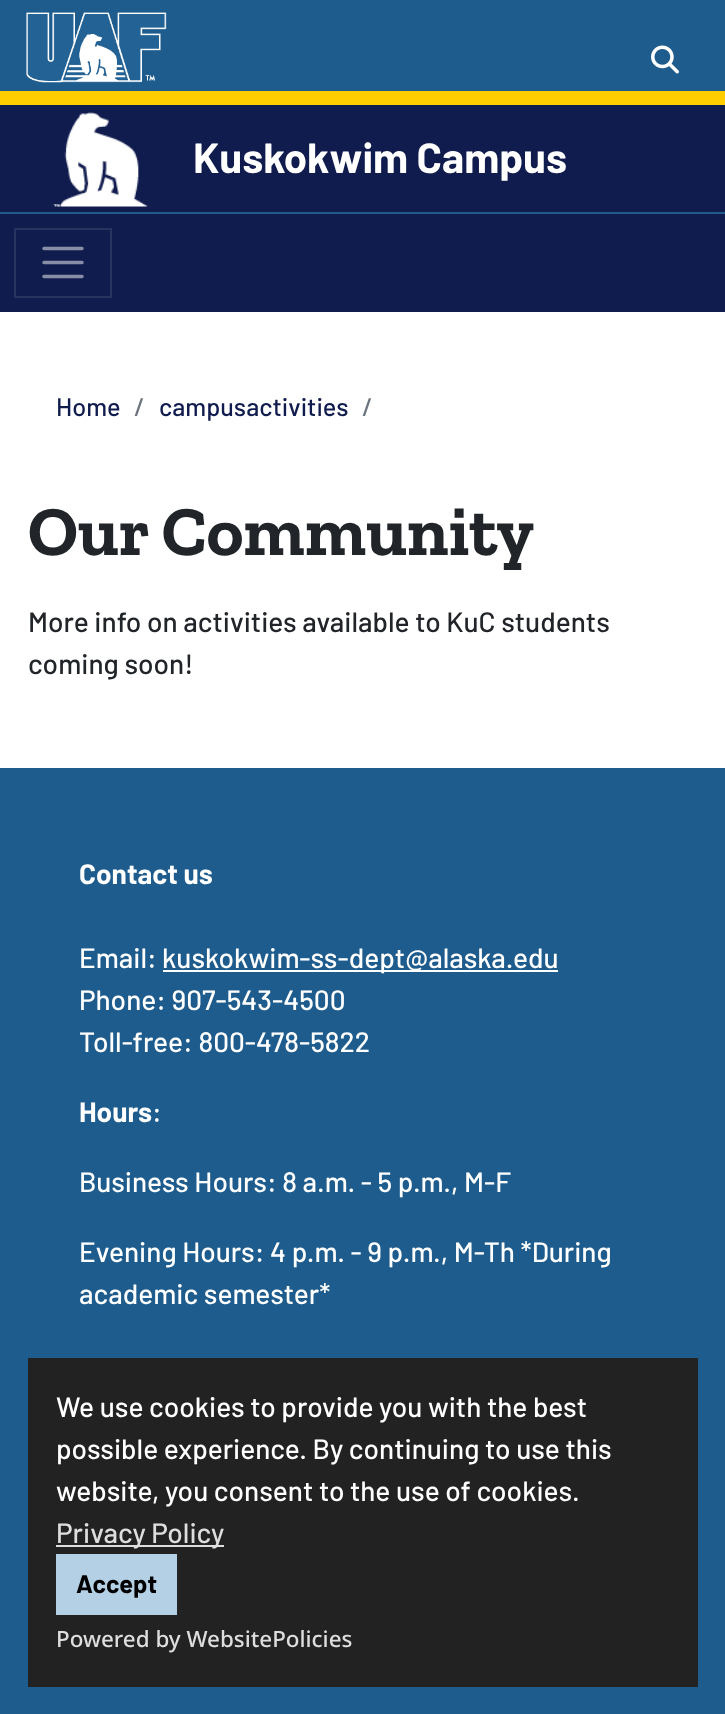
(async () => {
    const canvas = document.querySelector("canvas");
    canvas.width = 725;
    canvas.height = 1714;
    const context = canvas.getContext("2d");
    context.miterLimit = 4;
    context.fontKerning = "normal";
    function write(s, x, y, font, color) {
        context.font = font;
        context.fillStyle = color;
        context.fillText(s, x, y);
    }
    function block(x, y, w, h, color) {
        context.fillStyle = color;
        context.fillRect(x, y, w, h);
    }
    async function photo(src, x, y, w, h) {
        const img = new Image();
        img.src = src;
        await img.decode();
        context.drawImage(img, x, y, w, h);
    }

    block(0, 0, 725, 1714, "rgb(30, 92, 141)");
    await photo("media/1.png", 26, 12, 141, 71);
    await photo("media/2.png", 651, 45, 28, 29);
    block(0, 105, 725, 107, "rgb(17, 28, 78)");
    block(0, 91, 725, 14, "rgb(255, 205, 0)");
    await photo("media/3.png", 53, 112, 95, 95);
    write("Kuskokwim Campus", 193, 173, "bold 42px Barlow", "rgb(255, 255, 255)");
    block(0, 214, 725, 98, "rgb(17, 28, 78)");
    context.strokeStyle = "rgb(41, 51, 96)";
    context.lineWidth = 2;
    context.strokeRect(15, 229, 96, 68);
    context.beginPath();
    context.moveTo(44, 248.5);
    context.lineTo(82, 248.5);
    context.moveTo(44, 262.5);
    context.lineTo(82, 262.5);
    context.moveTo(44, 276.5);
    context.lineTo(82, 276.5);
    context.strokeStyle = "rgb(136, 142, 167)";
    context.lineWidth = 3.5;
    context.lineCap = "round";
    context.stroke();
    block(0, 312, 725, 456, "rgb(255, 255, 255)");
    write("Home", 56, 416, "500 25.25px Barlow", "rgb(17, 28, 78)");
    write("/", 134, 416, "500 25.25px Barlow", "rgb(108, 117, 125)");
    write("campusactivities", 159, 416, "500 25.25px Barlow", "rgb(17, 28, 78)");
    write("/", 362, 416, "500 25.25px Barlow", "rgb(108, 117, 125)");
    write("Our Community", 28, 555, "bold 70px Zilla Slab", "rgb(33, 37, 41)");
    write("More info on activities available to KuC students", 28, 632, "500 28px Barlow", "rgb(33, 37, 41)");
    write("coming soon!", 28, 674, "500 28px Barlow", "rgb(33, 37, 41)");
    write("Contact us", 79, 884, "bold 28px Barlow", "rgb(255, 255, 255)");
    write("Email:", 79, 968, "500 28px Barlow", "rgb(255, 255, 255)");
    block(163, 970, 395, 2, "rgb(255, 255, 255)");
    write("kuskokwim-ss-dept@alaska.edu", 162, 968, "500 28px Barlow", "rgb(255, 255, 255)");
    write("Phone: 907-543-4500", 79, 1010, "500 28px Barlow", "rgb(255, 255, 255)");
    write("Toll-free: 800-478-5822", 79, 1052, "500 28px Barlow", "rgb(255, 255, 255)");
    write("Hours", 79, 1122, "bold 28px Barlow", "rgb(255, 255, 255)");
    write(":", 152, 1122, "500 28px Barlow", "rgb(255, 255, 255)");
    write("Business Hours: 8 a.m. - 5 p.m., M-F", 79, 1192, "500 28px Barlow", "rgb(255, 255, 255)");
    write("Evening Hours: 4 p.m. - 9 p.m., M-Th *During", 79, 1262, "500 28px Barlow", "rgb(255, 255, 255)");
    write("academic semester*", 79, 1304, "500 28px Barlow", "rgb(255, 255, 255)");
    block(28, 1358, 670, 329, "rgb(34, 34, 34)");
    write("We use cookies to provide you with the best", 56, 1417, "500 28px Barlow", "rgb(255, 255, 255)");
    write("possible experience. By continuing to use this", 56, 1459, "500 28px Barlow", "rgb(255, 255, 255)");
    write("website, you consent to the use of cookies.", 56, 1501, "500 28px Barlow", "rgb(255, 255, 255)");
    block(56, 1545, 168, 2, "rgb(222, 222, 222)");
    write("Privacy Policy", 56, 1543, "500 28px Barlow", "rgb(222, 222, 222)");
    block(56, 1554, 121, 61, "rgb(179, 208, 228)");
    write("Accept", 76, 1593, "bold 25.25px Barlow", "rgb(0, 0, 0)");
    write("Powered by WebsitePolicies", 56, 1647, "500 22.4px Noto Sans", "rgb(222, 222, 222)");
})();
